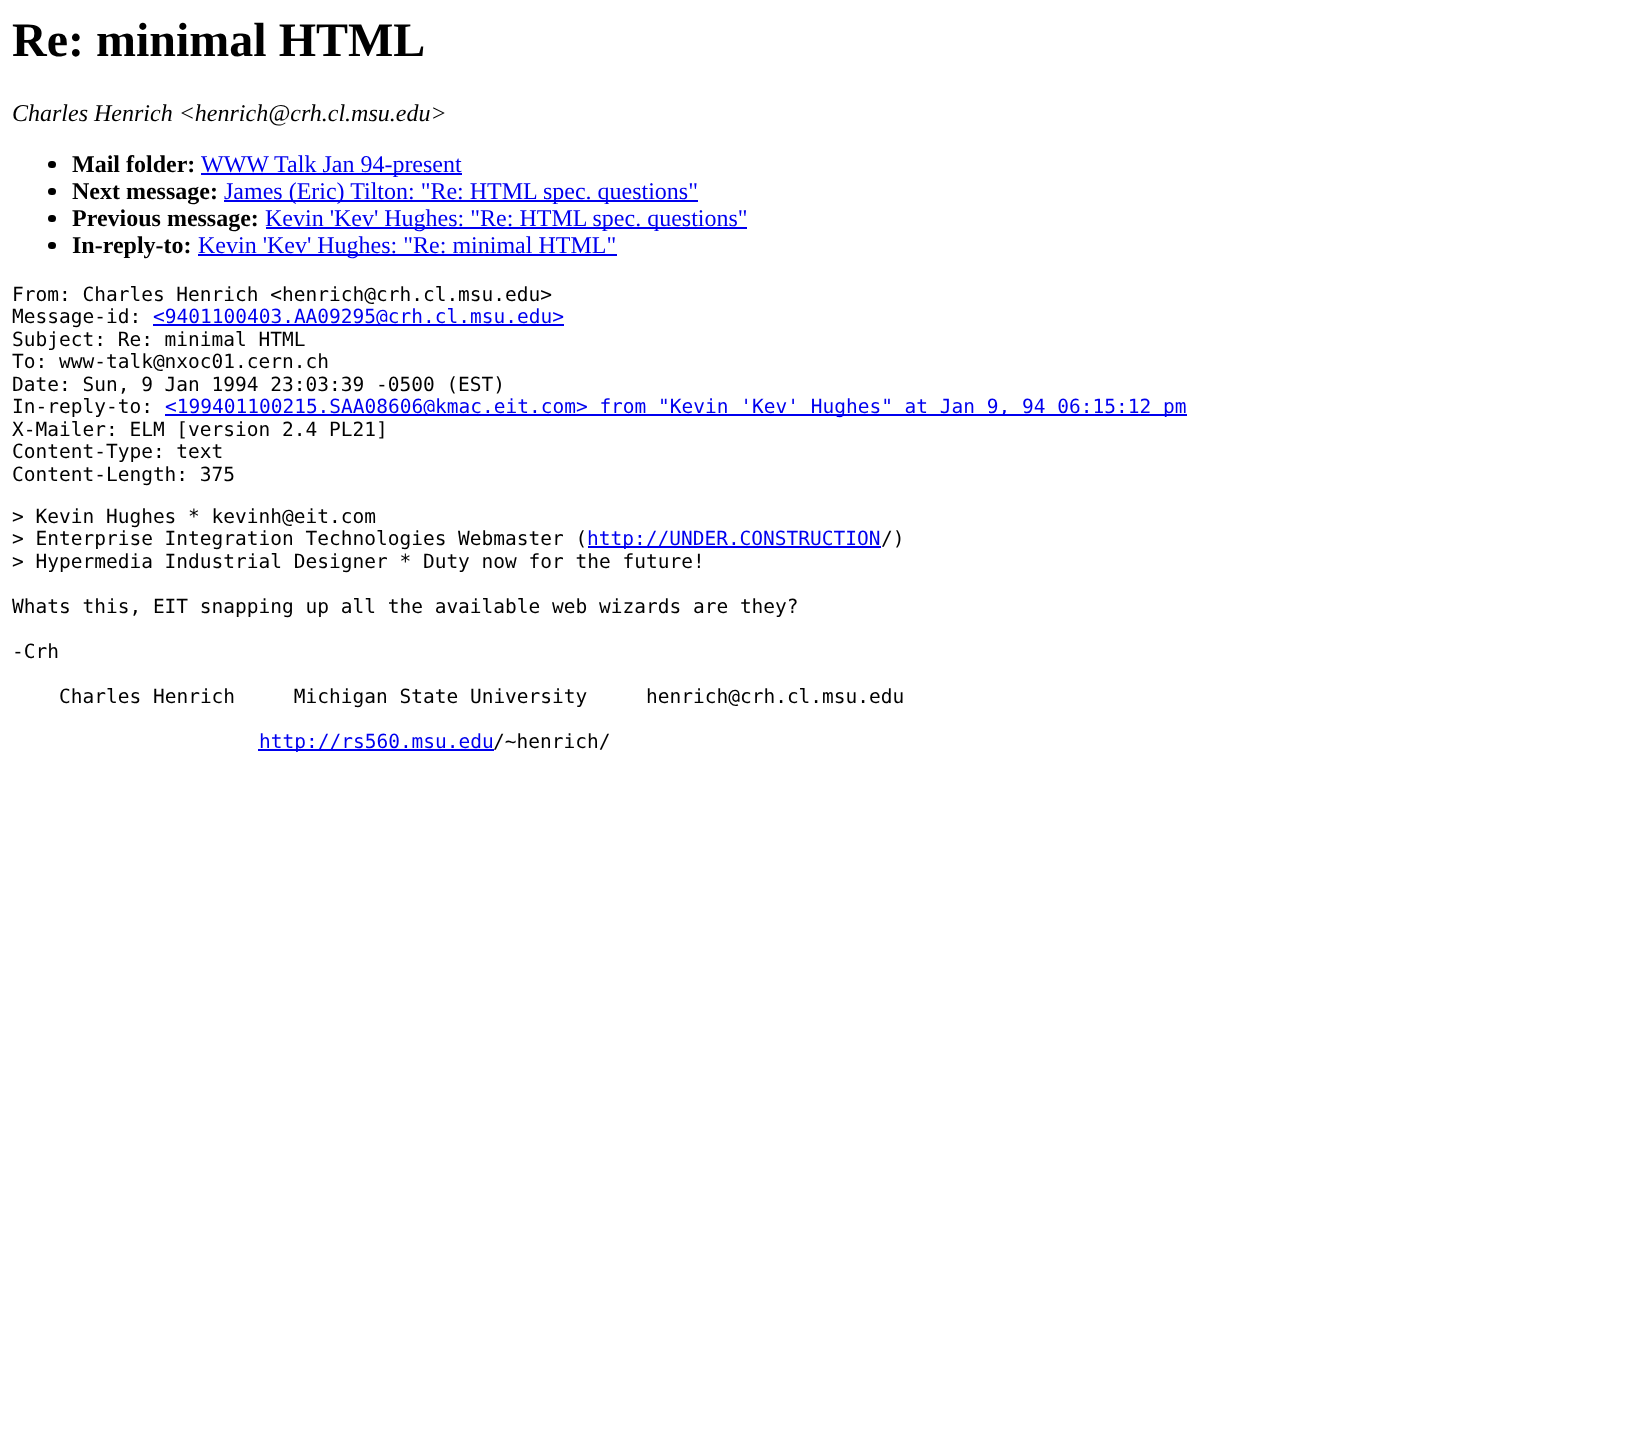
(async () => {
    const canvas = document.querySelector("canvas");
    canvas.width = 1633;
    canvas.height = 1450;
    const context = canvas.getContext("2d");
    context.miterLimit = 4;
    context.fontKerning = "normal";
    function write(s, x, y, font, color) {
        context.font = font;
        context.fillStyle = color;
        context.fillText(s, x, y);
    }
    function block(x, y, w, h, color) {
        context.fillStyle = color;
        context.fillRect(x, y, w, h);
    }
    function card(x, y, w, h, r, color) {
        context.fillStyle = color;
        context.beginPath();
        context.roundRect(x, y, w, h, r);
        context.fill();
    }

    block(0, 0, 1633, 1450, "rgb(255, 255, 255)");
    write("Re: minimal HTML", 12, 56, "bold 48px Liberation Serif", "rgb(0, 0, 0)");
    write("Charles Henrich <henrich@crh.cl.msu.edu>", 12, 121, "italic 24px Liberation Serif", "rgb(0, 0, 0)");
    card(48, 161, 8, 7, 3.5, "rgb(0, 0, 0)");
    write("Mail folder:", 72, 172, "bold 24px Liberation Serif", "rgb(0, 0, 0)");
    block(201, 173, 261, 2, "rgb(0, 0, 238)");
    write("WWW Talk Jan 94-present", 201, 172, "24px Liberation Serif", "rgb(0, 0, 238)");
    card(48, 188, 8, 7, 3.5, "rgb(0, 0, 0)");
    write("Next message:", 72, 199, "bold 24px Liberation Serif", "rgb(0, 0, 0)");
    block(224, 200, 474, 2, "rgb(0, 0, 238)");
    write("James (Eric) Tilton: \"Re: HTML spec. questions\"", 224, 199, "24px Liberation Serif", "rgb(0, 0, 238)");
    card(48, 215, 8, 7, 3.5, "rgb(0, 0, 0)");
    write("Previous message:", 72, 226, "bold 24px Liberation Serif", "rgb(0, 0, 0)");
    block(266, 227, 481, 2, "rgb(0, 0, 238)");
    write("Kevin 'Kev' Hughes: \"Re: HTML spec. questions\"", 265, 226, "24px Liberation Serif", "rgb(0, 0, 238)");
    card(48, 242, 8, 7, 3.5, "rgb(0, 0, 0)");
    write("In-reply-to:", 72, 253, "bold 24px Liberation Serif", "rgb(0, 0, 0)");
    block(198, 254, 419, 2, "rgb(0, 0, 238)");
    write("Kevin 'Kev' Hughes: \"Re: minimal HTML\"", 198, 253, "24px Liberation Serif", "rgb(0, 0, 238)");
    write("From: Charles Henrich <henrich@crh.cl.msu.edu>", 12, 301, "19.5px DejaVu Sans Mono", "rgb(0, 0, 0)");
    write("Message-id:", 12, 323, "19.5px DejaVu Sans Mono", "rgb(0, 0, 0)");
    block(153, 324, 411, 2, "rgb(0, 0, 238)");
    write("<9401100403.AA09295@crh.cl.msu.edu>", 153, 323, "19.5px DejaVu Sans Mono", "rgb(0, 0, 238)");
    write("Subject: Re: minimal HTML", 12, 346, "19.5px DejaVu Sans Mono", "rgb(0, 0, 0)");
    write("To: www-talk@nxoc01.cern.ch", 12, 368, "19.5px DejaVu Sans Mono", "rgb(0, 0, 0)");
    write("Date: Sun, 9 Jan 1994 23:03:39 -0500 (EST)", 12, 391, "19.5px DejaVu Sans Mono", "rgb(0, 0, 0)");
    write("In-reply-to:", 12, 413, "19.5px DejaVu Sans Mono", "rgb(0, 0, 0)");
    block(165, 414, 1022, 2, "rgb(0, 0, 238)");
    write("<199401100215.SAA08606@kmac.eit.com> from \"Kevin 'Kev' Hughes\" at Jan 9, 94 06:15:12 pm", 165, 413, "19.5px DejaVu Sans Mono", "rgb(0, 0, 238)");
    write("X-Mailer: ELM [version 2.4 PL21]", 12, 436, "19.5px DejaVu Sans Mono", "rgb(0, 0, 0)");
    write("Content-Type: text", 12, 458, "19.5px DejaVu Sans Mono", "rgb(0, 0, 0)");
    write("Content-Length: 375", 12, 481, "19.5px DejaVu Sans Mono", "rgb(0, 0, 0)");
    write("> Kevin Hughes * kevinh@eit.com", 12, 523, "19.5px DejaVu Sans Mono", "rgb(0, 0, 0)");
    write("> Enterprise Integration Technologies Webmaster (", 12, 545, "19.5px DejaVu Sans Mono", "rgb(0, 0, 0)");
    block(588, 546, 293, 2, "rgb(0, 0, 238)");
    write("http://UNDER.CONSTRUCTION", 587, 545, "19.5px DejaVu Sans Mono", "rgb(0, 0, 238)");
    write("/)", 881, 545, "19.5px DejaVu Sans Mono", "rgb(0, 0, 0)");
    write("> Hypermedia Industrial Designer * Duty now for the future!", 12, 568, "19.5px DejaVu Sans Mono", "rgb(0, 0, 0)");
    write("Whats this, EIT snapping up all the available web wizards are they?", 12, 613, "19.5px DejaVu Sans Mono", "rgb(0, 0, 0)");
    write("-Crh", 12, 658, "19.5px DejaVu Sans Mono", "rgb(0, 0, 0)");
    write("Charles Henrich     Michigan State University     henrich@crh.cl.msu.edu", 59, 703, "19.5px DejaVu Sans Mono", "rgb(0, 0, 0)");
    block(258, 749, 236, 2, "rgb(0, 0, 238)");
    write("http://rs560.msu.edu", 259, 748, "19.5px DejaVu Sans Mono", "rgb(0, 0, 238)");
    write("/~henrich/", 493, 748, "19.5px DejaVu Sans Mono", "rgb(0, 0, 0)");
})();
